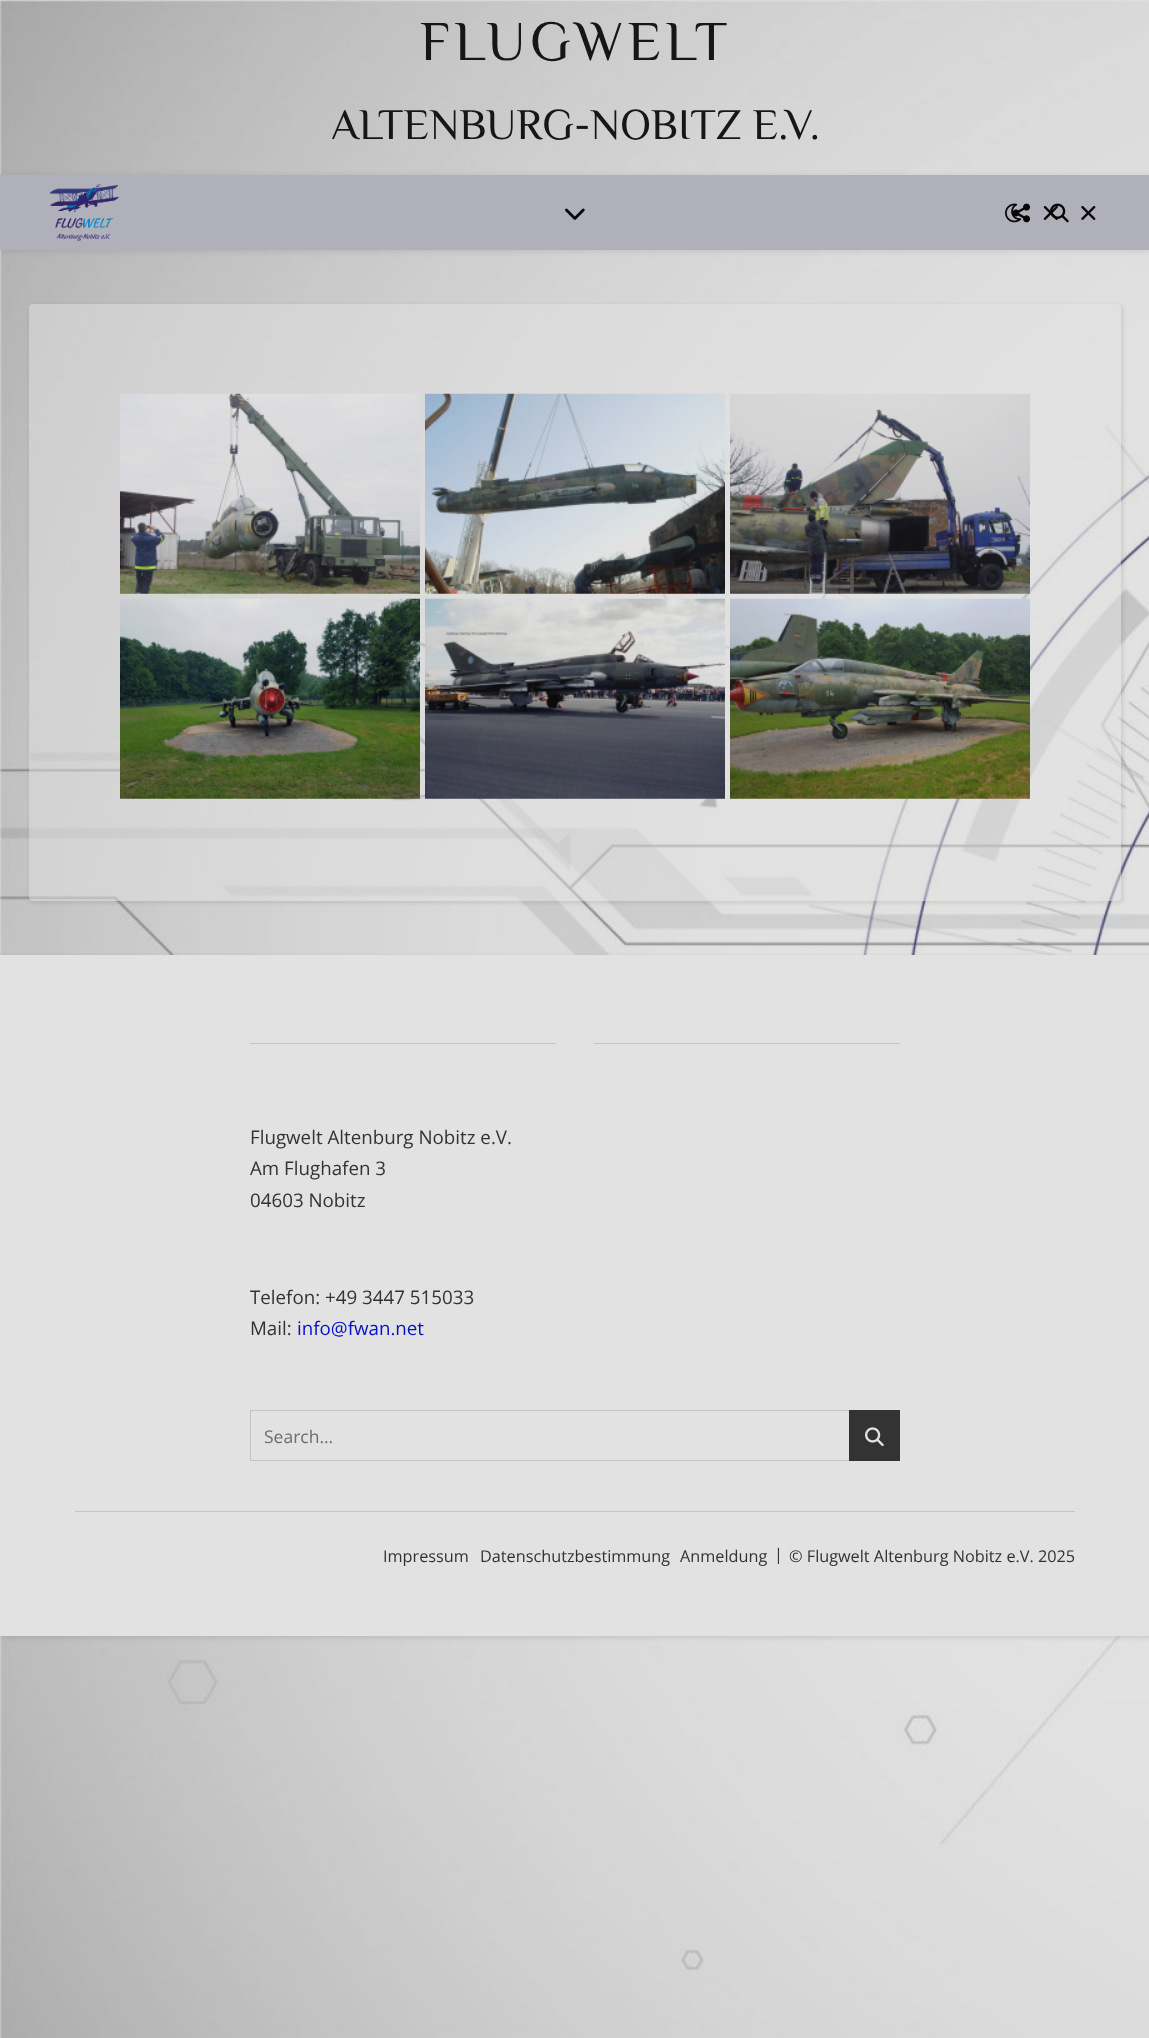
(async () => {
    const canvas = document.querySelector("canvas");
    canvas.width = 1149;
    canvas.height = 2038;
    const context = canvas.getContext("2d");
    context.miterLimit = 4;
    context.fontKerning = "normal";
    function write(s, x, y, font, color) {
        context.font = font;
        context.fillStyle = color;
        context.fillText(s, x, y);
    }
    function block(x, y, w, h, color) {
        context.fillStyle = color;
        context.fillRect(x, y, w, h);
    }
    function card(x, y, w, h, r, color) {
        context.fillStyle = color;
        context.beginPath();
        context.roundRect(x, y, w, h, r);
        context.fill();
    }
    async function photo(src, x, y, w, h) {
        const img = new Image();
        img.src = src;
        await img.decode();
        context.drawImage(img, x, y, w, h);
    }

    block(0, 0, 1149, 2038, "rgb(255, 255, 255)");
    await photo("media/1.png", 0, 0, 1149, 2038);
    context.letterSpacing = "4.5px";
    write("FLUGWELT", 420, 60, "56.25px Philosopher", "rgb(22, 22, 22)");
    context.letterSpacing = "0px";
    write("ALTENBURG-NOBITZ E.V.", 331, 139, "43.75px Philosopher", "rgb(22, 22, 22)");
    context.fillStyle = "rgba(7, 7, 7, 0.1)";
    context.filter = "blur(3px)";
    context.beginPath();
    context.rect(0, 176, 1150, 75);
    context.fill();
    context.filter = "none";
    block(0, 175, 1149, 75, "rgb(176, 176, 187)");
    await photo("media/2.png", 50, 184, 69, 57);
    await photo("media/3.png", 1005, 203, 17, 20);
    await photo("media/4.png", 1050, 203, 19, 20);
    await photo("media/5.png", 1081, 206, 15, 14);
    await photo("media/6.png", 565, 208, 20, 12);
    await photo("media/7.png", 1013, 203, 18, 20);
    await photo("media/8.png", 1043, 206, 15, 14);
    context.save();
    context.beginPath();
    context.moveTo(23, 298);
    context.lineTo(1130, 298);
    context.lineTo(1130, 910);
    context.lineTo(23, 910);
    context.closePath();
    context.moveTo(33, 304);
    context.lineTo(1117, 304);
    context.bezierCurveTo(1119, 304, 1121, 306, 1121, 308);
    context.lineTo(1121, 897);
    context.bezierCurveTo(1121, 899, 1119, 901, 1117, 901);
    context.lineTo(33, 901);
    context.bezierCurveTo(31, 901, 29, 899, 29, 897);
    context.lineTo(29, 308);
    context.bezierCurveTo(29, 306, 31, 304, 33, 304);
    context.closePath();
    context.clip("evenodd");
    context.fillStyle = "rgba(7, 7, 7, 0.1)";
    context.filter = "blur(2px)";
    context.beginPath();
    context.roundRect(30, 305, 1093, 598, 4);
    context.fill();
    context.filter = "none";
    context.restore();
    card(29, 304, 1092, 597, 4, "rgba(226, 226, 226, 0.5)");
    await photo("media/9.png", 120, 393, 300, 201);
    await photo("media/10.png", 425, 393, 300, 201);
    await photo("media/11.png", 730, 394, 300, 200);
    await photo("media/12.png", 120, 598, 300, 201);
    await photo("media/13.png", 425, 598, 300, 201);
    await photo("media/14.png", 730, 598, 300, 201);
    context.fillStyle = "rgba(7, 7, 7, 0.1)";
    context.filter = "blur(2px)";
    context.beginPath();
    context.rect(1, 956, 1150, 682);
    context.fill();
    context.filter = "none";
    block(0, 955, 1149, 681, "rgb(226, 226, 226)");
    block(75, 1511, 1000, 1, "rgb(200, 195, 195)");
    block(250, 1043, 306, 1, "rgb(200, 195, 195)");
    block(594, 1043, 306, 1, "rgb(200, 195, 195)");
    write("Flugwelt Altenburg Nobitz e.V.", 250, 1144, "18.75px Open Sans", "rgb(51, 51, 51)");
    write("Am Flughafen 3", 250, 1175, "18.75px Open Sans", "rgb(51, 51, 51)");
    write("04603 Nobitz", 250, 1207, "18.75px Open Sans", "rgb(51, 51, 51)");
    write("Telefon: +49 3447 515033", 250, 1304, "18.75px Open Sans", "rgb(51, 51, 51)");
    write("Mail:", 250, 1335, "18.75px Open Sans", "rgb(51, 51, 51)");
    write("info@fwan.net", 297, 1335, "18.75px Open Sans", "rgb(7, 17, 202)");
    context.strokeStyle = "rgb(200, 195, 195)";
    context.strokeRect(250.5, 1410.5, 649, 50);
    write("Search...", 264, 1443, "17.5px Open Sans", "rgb(108, 108, 108)");
    block(849, 1410, 51, 51, "rgb(51, 51, 51)");
    await photo("media/15.png", 865, 1427, 19, 20);
    write("Impressum", 383, 1562, "16.25px Open Sans", "rgb(51, 51, 51)");
    write("Datenschutzbestimmung", 480, 1562, "16.25px Open Sans", "rgb(51, 51, 51)");
    write("Anmeldung", 680, 1562, "16.25px Open Sans", "rgb(51, 51, 51)");
    write("|", 774, 1560, "16.25px Open Sans", "rgb(51, 51, 51)");
    write("© Flugwelt Altenburg Nobitz e.V. 2025", 789, 1562, "16.25px Open Sans", "rgb(51, 51, 51)");
})();
